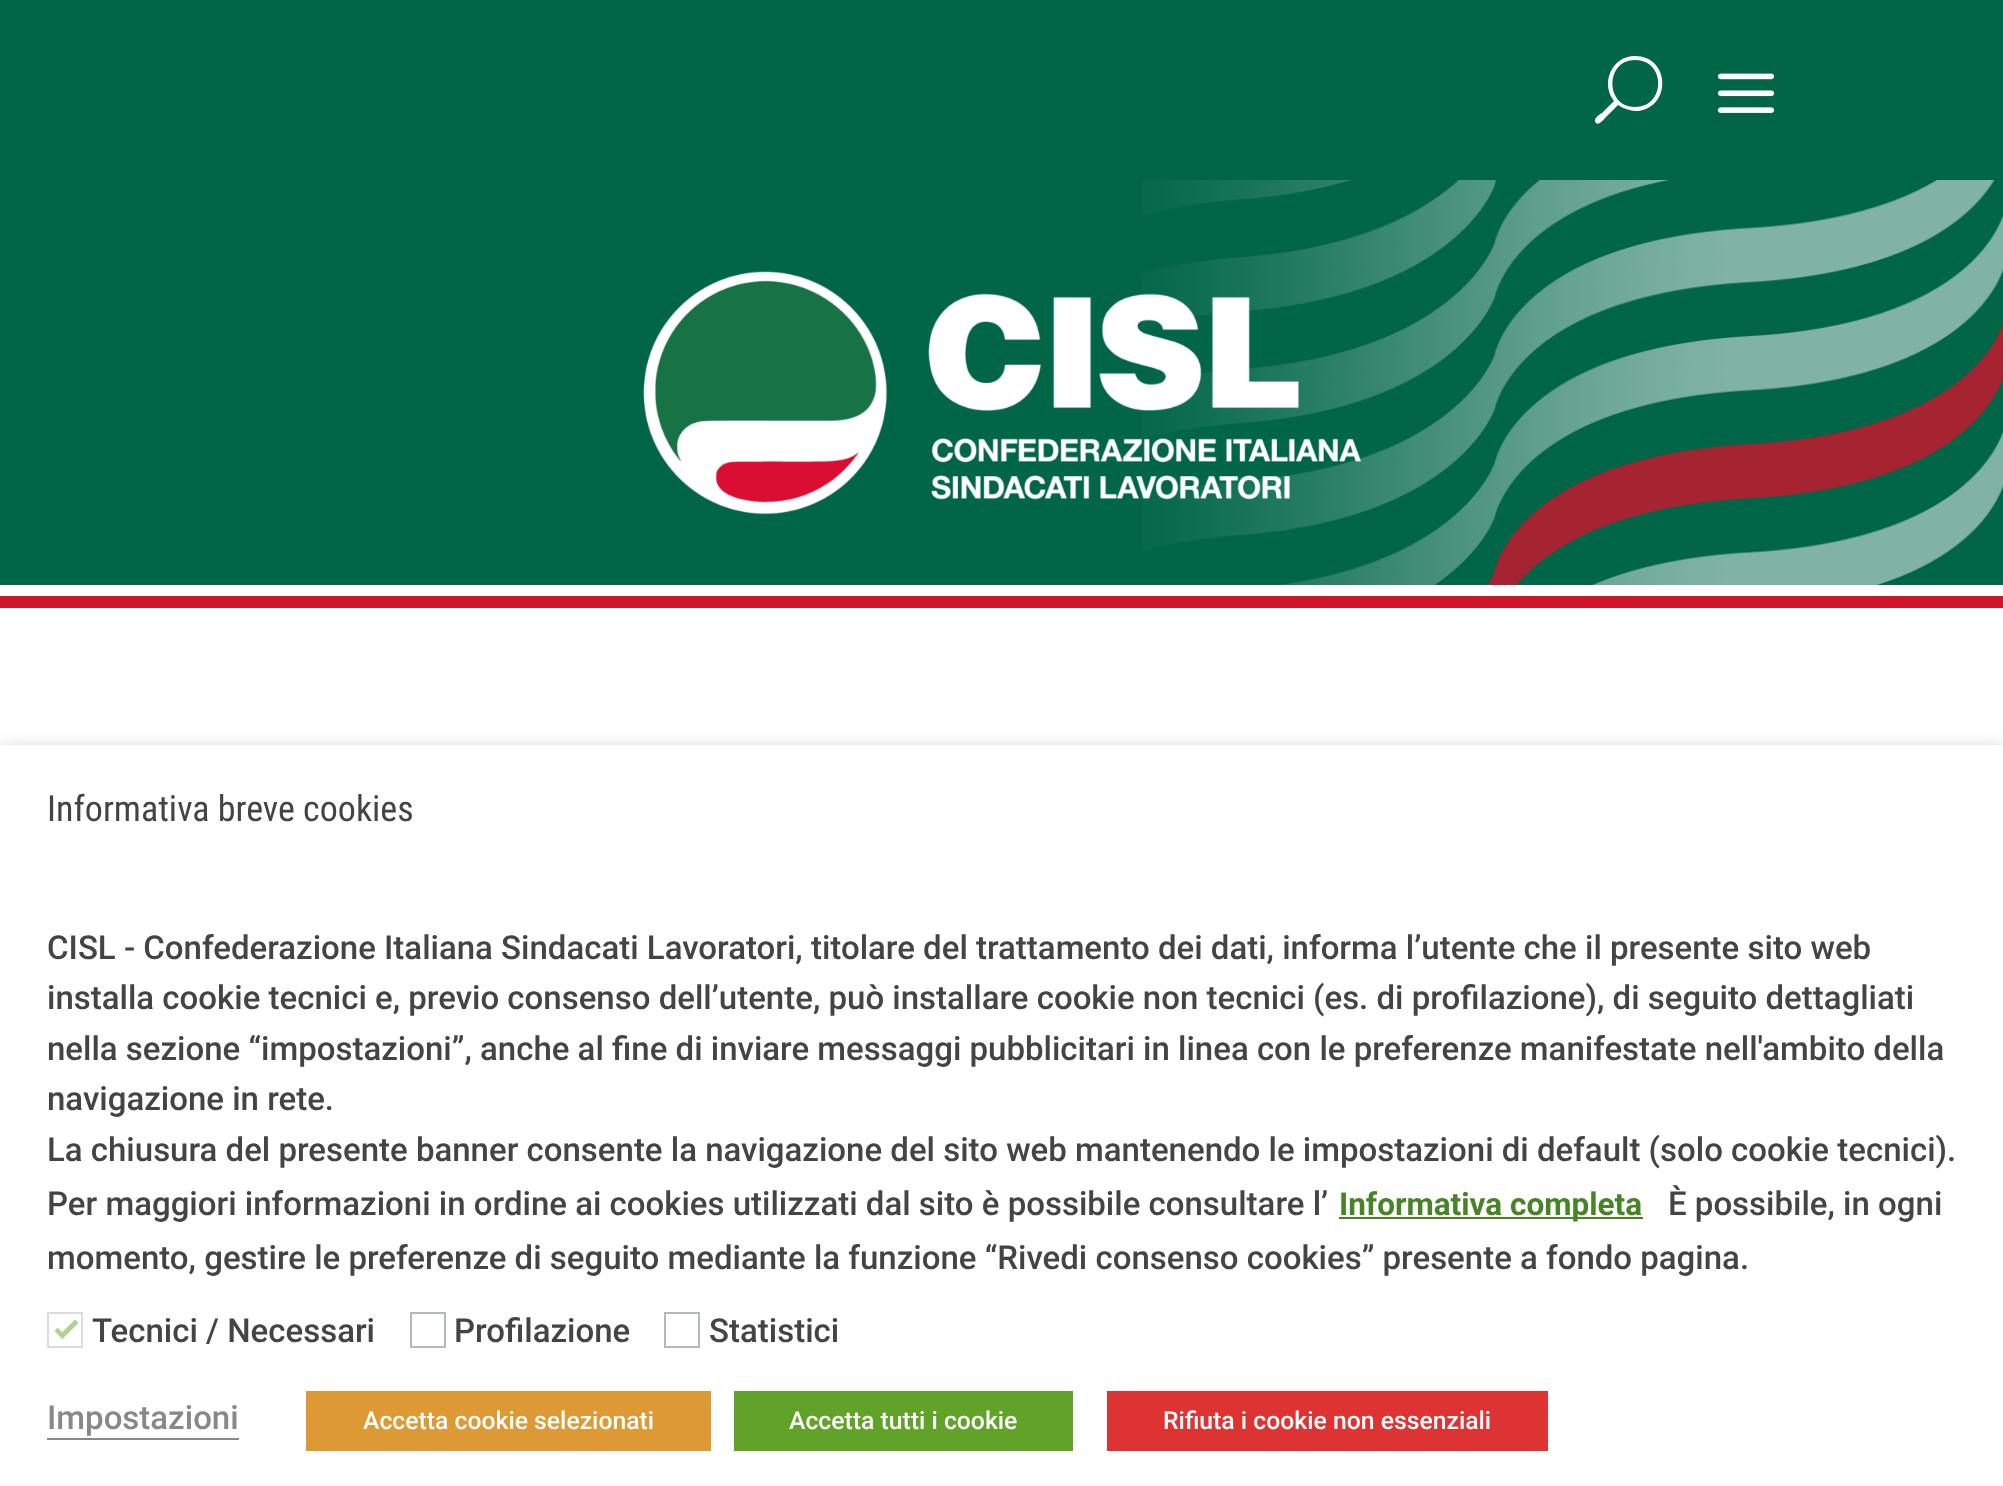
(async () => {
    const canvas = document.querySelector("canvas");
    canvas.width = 2003;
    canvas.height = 1486;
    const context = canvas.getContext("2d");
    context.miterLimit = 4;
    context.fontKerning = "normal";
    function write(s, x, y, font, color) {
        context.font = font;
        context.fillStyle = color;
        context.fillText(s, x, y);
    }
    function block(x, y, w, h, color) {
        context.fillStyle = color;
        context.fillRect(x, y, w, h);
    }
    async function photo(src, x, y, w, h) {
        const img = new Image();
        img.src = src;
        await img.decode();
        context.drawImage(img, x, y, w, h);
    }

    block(0, 0, 2003, 1486, "rgb(255, 255, 255)");
    block(0, 0, 2003, 585, "rgb(1, 102, 72)");
    context.fillStyle = "rgb(255, 255, 255)";
    context.beginPath();
    context.moveTo(1635, 56);
    context.bezierCurveTo(1612, 56, 1600, 83, 1614, 101);
    context.lineTo(1602, 113);
    context.bezierCurveTo(1600, 114, 1592, 119, 1596, 123);
    context.bezierCurveTo(1599, 126, 1605, 118, 1606, 117);
    context.lineTo(1618, 105);
    context.bezierCurveTo(1624, 109, 1631, 111, 1638, 111);
    context.bezierCurveTo(1672, 107, 1670, 56, 1635, 56);
    context.closePath();
    context.moveTo(1635, 107);
    context.bezierCurveTo(1605, 107, 1605, 60, 1635, 60);
    context.bezierCurveTo(1666, 60, 1666, 107, 1635, 107);
    context.closePath();
    context.fill();
    await photo("media/1.png", 1717, 73, 58, 40);
    await photo("media/2.png", 1142, 180, 861, 405);
    await photo("media/3.png", 643, 271, 719, 244);
    block(0, 596, 2003, 12, "rgb(208, 20, 44)");
    context.fillStyle = "rgba(0, 0, 0, 0.5)";
    context.filter = "blur(11px)";
    context.beginPath();
    context.rect(0, 756, 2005, 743);
    context.fill();
    context.filter = "none";
    block(0, 745, 2003, 741, "rgb(255, 255, 255)");
    write("Informativa breve cookies", 47, 821, "36px Roboto Condensed", "rgb(68, 68, 68)");
    write("CISL - Confederazione Italiana Sindacati Lavoratori, titolare del trattamento dei dati, informa l’utente che il presente sito web", 47, 959, "500 33px Roboto", "rgb(68, 68, 68)");
    write("installa cookie tecnici e, previo consenso dell’utente, può installare cookie non tecnici (es. di profilazione), di seguito dettagliati", 47, 1009, "500 33px Roboto", "rgb(68, 68, 68)");
    write("nella sezione “impostazioni”, anche al fine di inviare messaggi pubblicitari in linea con le preferenze manifestate nell'ambito della", 47, 1060, "500 33px Roboto", "rgb(68, 68, 68)");
    write("navigazione in rete.", 47, 1110, "500 33px Roboto", "rgb(68, 68, 68)");
    write("La chiusura del presente banner consente la navigazione del sito web mantenendo le impostazioni di default (solo cookie tecnici).", 47, 1161, "500 33px Roboto", "rgb(68, 68, 68)");
    write("Per maggiori informazioni in ordine ai cookies utilizzati dal sito è possibile consultare l’", 47, 1215, "500 33px Roboto", "rgb(68, 68, 68)");
    block(1339, 1217, 304, 2, "rgb(72, 132, 39)");
    write("Informativa completa", 1339, 1215, "bold 31.5px Roboto", "rgb(72, 132, 39)");
    write("È possibile, in ogni", 1668, 1215, "500 33px Roboto", "rgb(68, 68, 68)");
    write("momento, gestire le preferenze di seguito mediante la funzione “Rivedi consenso cookies” presente a fondo pagina.", 47, 1269, "500 33px Roboto", "rgb(68, 68, 68)");
    context.strokeStyle = "rgb(218, 220, 223)";
    context.lineWidth = 2;
    context.strokeRect(48, 1313, 34, 34);
    context.fillStyle = "rgb(176, 209, 148)";
    context.beginPath();
    context.moveTo(75, 1319.5);
    context.lineTo(78.5, 1323);
    context.lineTo(62.5, 1339);
    context.lineTo(59, 1335.5);
    context.closePath();
    context.fill();
    context.beginPath();
    context.moveTo(57.5, 1327.5);
    context.lineTo(65.5, 1335.5);
    context.lineTo(62.5, 1339);
    context.lineTo(54.5, 1331);
    context.closePath();
    context.fill();
    write("Tecnici / Necessari", 92, 1342, "500 33px Roboto", "rgb(68, 68, 68)");
    context.strokeStyle = "rgb(180, 185, 190)";
    context.strokeRect(411, 1313, 34, 34);
    write("Profilazione", 454, 1342, "500 33px Roboto", "rgb(68, 68, 68)");
    context.strokeRect(665, 1313, 34, 34);
    write("Statistici", 709, 1342, "500 33px Roboto", "rgb(68, 68, 68)");
    write("Impostazioni", 47, 1429, "500 33px Roboto", "rgb(137, 136, 136)");
    block(47, 1438, 192, 2, "rgb(137, 136, 136)");
    block(306, 1391, 405, 60, "rgb(221, 153, 51)");
    write("Accetta cookie selezionati", 363, 1429, "500 24.75px Roboto", "rgb(255, 255, 255)");
    block(734, 1391, 339, 60, "rgb(97, 162, 41)");
    write("Accetta tutti i cookie", 789, 1429, "500 24.75px Roboto", "rgb(255, 255, 255)");
    block(1107, 1391, 441, 60, "rgb(221, 51, 51)");
    write("Rifiuta i cookie non essenziali", 1163, 1429, "500 24.75px Roboto", "rgb(255, 255, 255)");
})();
